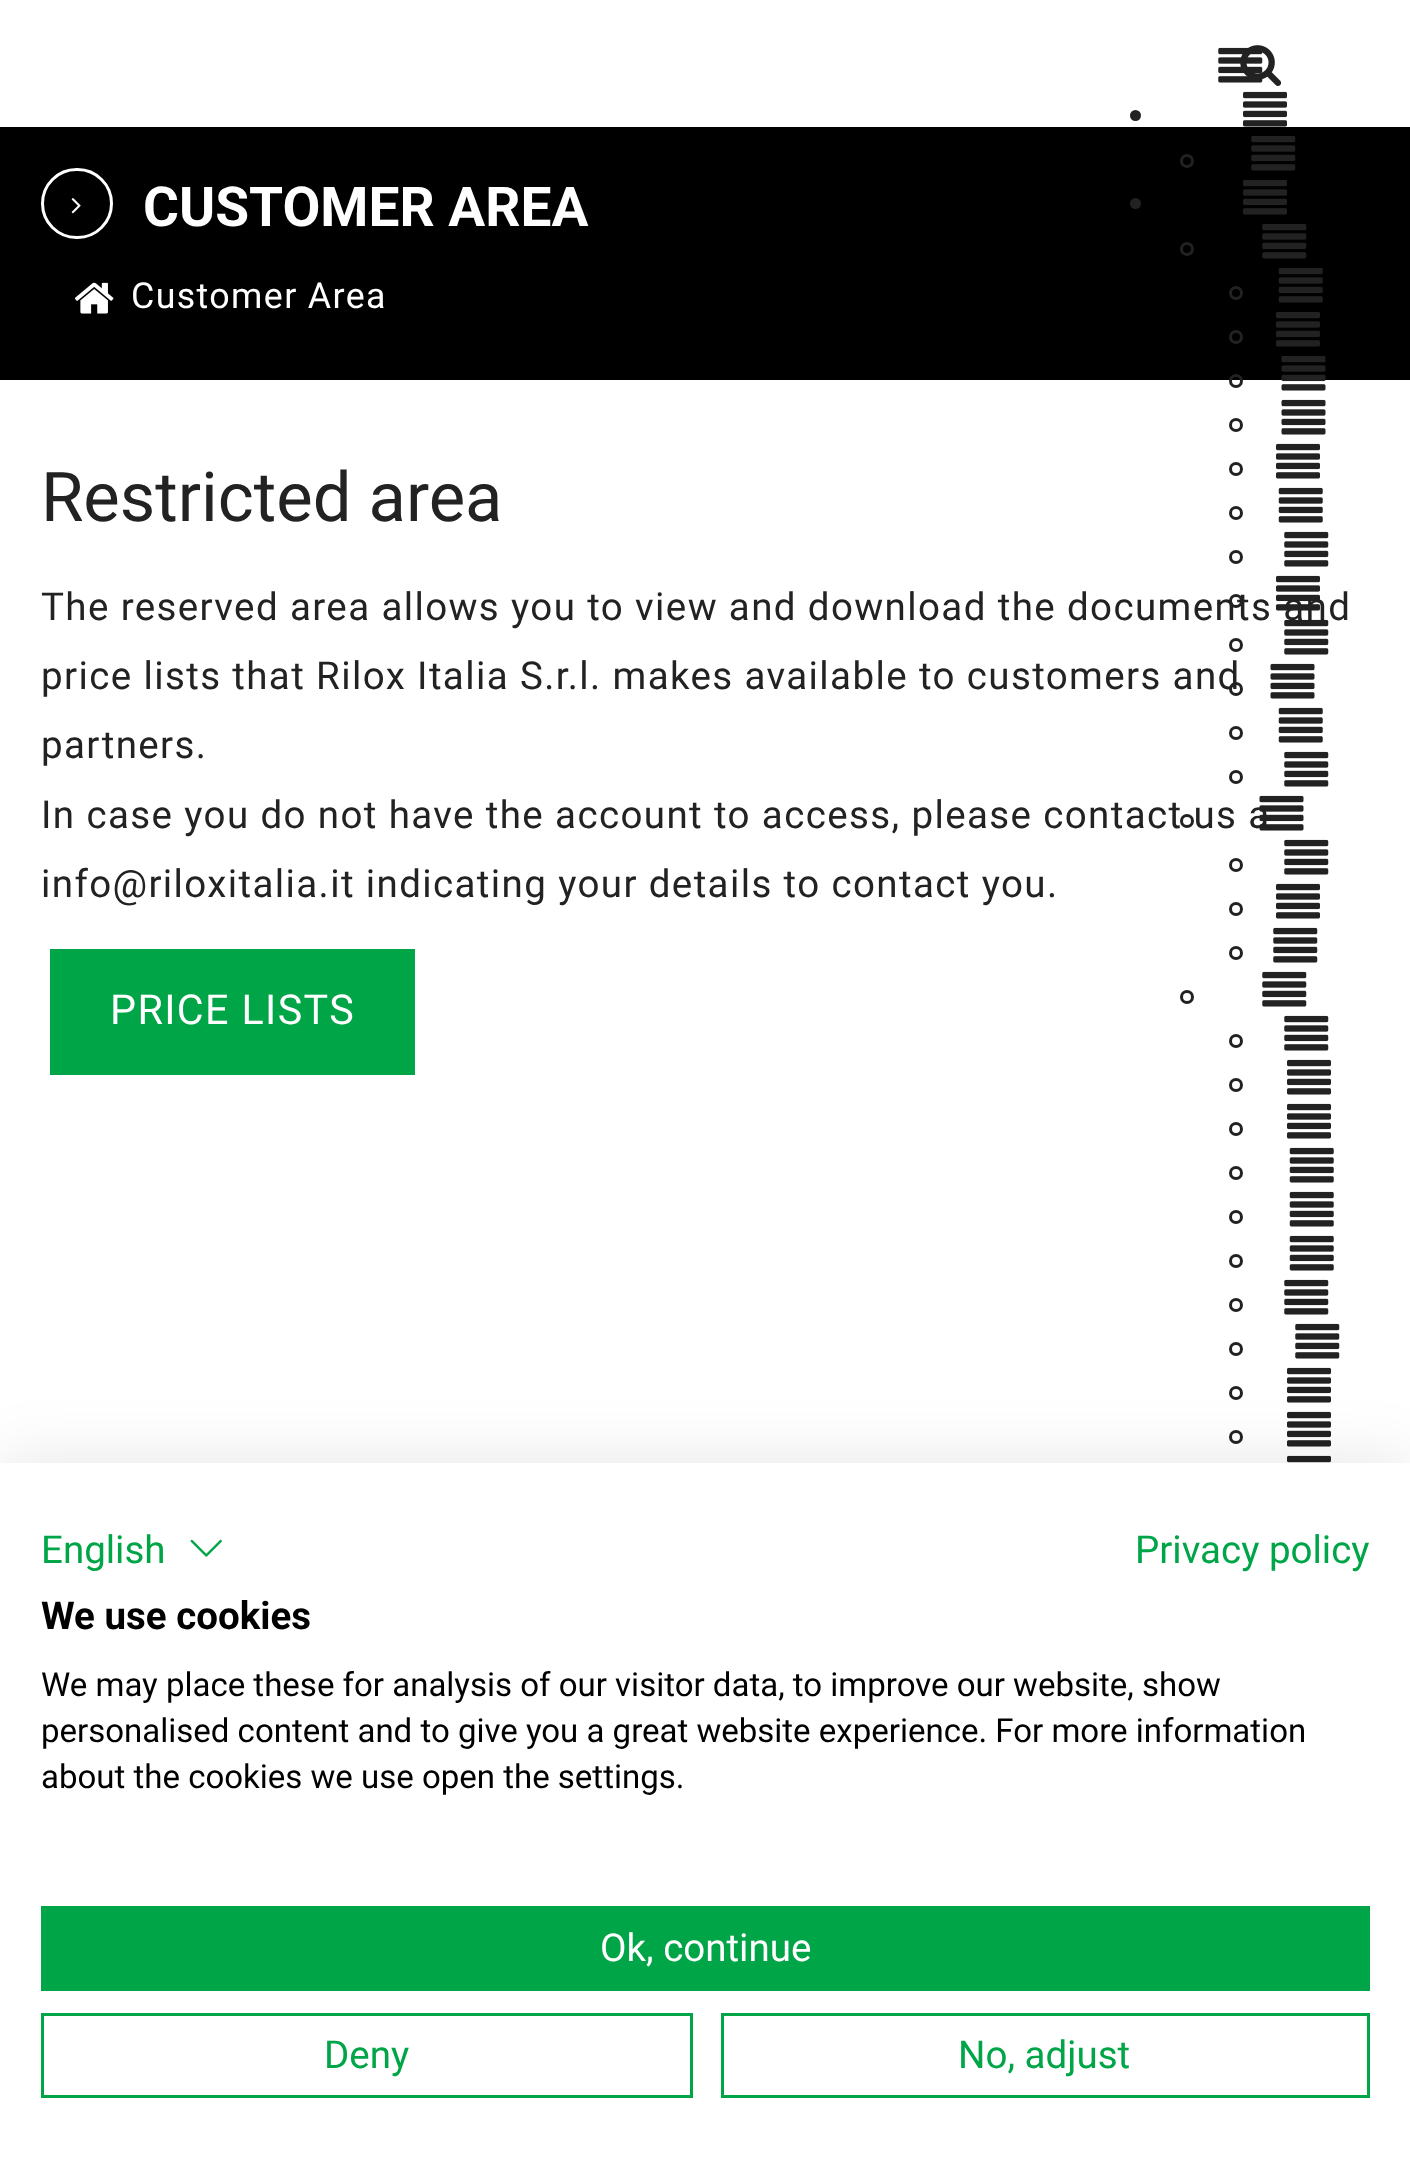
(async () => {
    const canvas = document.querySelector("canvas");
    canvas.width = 1410;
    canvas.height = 2170;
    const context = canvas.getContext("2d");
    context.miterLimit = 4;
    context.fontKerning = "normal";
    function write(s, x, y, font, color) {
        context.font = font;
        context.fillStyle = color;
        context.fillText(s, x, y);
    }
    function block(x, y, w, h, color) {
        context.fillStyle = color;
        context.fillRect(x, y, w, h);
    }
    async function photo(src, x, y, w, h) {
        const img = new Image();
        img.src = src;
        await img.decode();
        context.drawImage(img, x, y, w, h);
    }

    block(0, 0, 1410, 2170, "rgb(255, 255, 255)");
    block(0, 127, 1410, 253, "rgb(0, 0, 0)");
    context.fillStyle = "rgba(0, 0, 0, 0.4)";
    context.filter = "blur(5.5px)";
    context.beginPath();
    context.rect(0, 0, 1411, 127);
    context.fill();
    context.filter = "none";
    block(0, 0, 1410, 127, "rgb(255, 255, 255)");
    await photo("media/1.png", 1240, 45, 42, 41);
    await photo("media/2.png", 1218, 47, 45, 36);
    context.fillStyle = "rgb(34, 34, 34)";
    context.beginPath();
    context.arc(1135.5, 115.5, 5.5, 0, Math.PI * 2);
    context.fill();
    await photo("media/3.png", 1243, 91, 44, 36);
    context.beginPath();
    context.arc(1187, 161, 5.5, 0, Math.PI * 2);
    context.strokeStyle = "rgb(34, 34, 34)";
    context.lineWidth = 3;
    context.stroke();
    await photo("media/4.png", 1251, 136, 45, 35);
    context.beginPath();
    context.arc(1135.5, 203.5, 5.5, 0, Math.PI * 2);
    context.fill();
    await photo("media/5.png", 1243, 180, 44, 35);
    context.beginPath();
    context.arc(1187, 249, 5.5, 0, Math.PI * 2);
    context.stroke();
    await photo("media/4.png", 1262, 224, 45, 35);
    context.beginPath();
    context.arc(1236, 293, 5.5, 0, Math.PI * 2);
    context.stroke();
    await photo("media/6.png", 1278, 268, 45, 35);
    context.beginPath();
    context.arc(1236, 337, 5.5, 0, Math.PI * 2);
    context.stroke();
    await photo("media/5.png", 1276, 312, 44, 35);
    context.beginPath();
    context.arc(1236, 381, 5.5, 0, Math.PI * 2);
    context.stroke();
    await photo("media/7.png", 1281, 356, 45, 35);
    context.beginPath();
    context.arc(1236, 425, 5.5, 0, Math.PI * 2);
    context.stroke();
    await photo("media/8.png", 1281, 399, 45, 36);
    context.beginPath();
    context.arc(1236, 469, 5.5, 0, Math.PI * 2);
    context.stroke();
    await photo("media/3.png", 1276, 443, 44, 36);
    context.beginPath();
    context.arc(1236, 513, 5.5, 0, Math.PI * 2);
    context.stroke();
    await photo("media/9.png", 1278, 487, 45, 36);
    context.beginPath();
    context.arc(1236, 557, 5.5, 0, Math.PI * 2);
    context.stroke();
    await photo("media/10.png", 1284, 531, 45, 36);
    context.beginPath();
    context.arc(1236, 601, 5.5, 0, Math.PI * 2);
    context.stroke();
    context.letterSpacing = "1.38px";
    write("The reserved area allows you to view and download the documents and", 41, 620, "38.5px Roboto", "rgb(34, 34, 34)");
    await photo("media/11.png", 1276, 575, 44, 36);
    context.beginPath();
    context.arc(1236, 645, 5.5, 0, Math.PI * 2);
    context.stroke();
    await photo("media/12.png", 1284, 619, 45, 36);
    context.beginPath();
    context.arc(1236, 689, 5.5, 0, Math.PI * 2);
    context.stroke();
    await photo("media/8.png", 1270, 663, 45, 36);
    context.beginPath();
    context.arc(1236, 733, 5.5, 0, Math.PI * 2);
    context.stroke();
    await photo("media/9.png", 1278, 707, 45, 36);
    context.beginPath();
    context.arc(1236, 777, 5.5, 0, Math.PI * 2);
    context.stroke();
    await photo("media/10.png", 1284, 751, 45, 36);
    context.beginPath();
    context.arc(1187, 821, 5.5, 0, Math.PI * 2);
    context.stroke();
    write("In case you do not have the account to access, please contact us a", 41, 828, "38.5px Roboto", "rgb(34, 34, 34)");
    await photo("media/13.png", 1259, 795, 45, 36);
    context.beginPath();
    context.arc(1236, 865, 5.5, 0, Math.PI * 2);
    context.stroke();
    await photo("media/10.png", 1284, 839, 45, 36);
    context.beginPath();
    context.arc(1236, 909, 5.5, 0, Math.PI * 2);
    context.stroke();
    await photo("media/3.png", 1276, 883, 44, 36);
    context.beginPath();
    context.arc(1236, 953, 5.5, 0, Math.PI * 2);
    context.stroke();
    await photo("media/10.png", 1273, 927, 45, 36);
    context.beginPath();
    context.arc(1187, 997, 5.5, 0, Math.PI * 2);
    context.stroke();
    await photo("media/10.png", 1262, 971, 45, 36);
    context.beginPath();
    context.arc(1236, 1041, 5.5, 0, Math.PI * 2);
    context.stroke();
    await photo("media/10.png", 1284, 1015, 45, 36);
    context.beginPath();
    context.arc(1236, 1085, 5.5, 0, Math.PI * 2);
    context.stroke();
    await photo("media/3.png", 1287, 1059, 44, 36);
    context.beginPath();
    context.arc(1236, 1129, 5.5, 0, Math.PI * 2);
    context.stroke();
    await photo("media/3.png", 1287, 1103, 44, 36);
    context.beginPath();
    context.arc(1236, 1173, 5.5, 0, Math.PI * 2);
    context.stroke();
    await photo("media/9.png", 1289, 1147, 45, 36);
    context.beginPath();
    context.arc(1236, 1217, 5.5, 0, Math.PI * 2);
    context.stroke();
    await photo("media/9.png", 1289, 1191, 45, 36);
    context.beginPath();
    context.arc(1236, 1261, 5.5, 0, Math.PI * 2);
    context.stroke();
    await photo("media/9.png", 1289, 1235, 45, 36);
    context.beginPath();
    context.arc(1236, 1305, 5.5, 0, Math.PI * 2);
    context.stroke();
    await photo("media/10.png", 1284, 1279, 45, 36);
    context.beginPath();
    context.arc(1236, 1349, 5.5, 0, Math.PI * 2);
    context.stroke();
    await photo("media/10.png", 1295, 1323, 45, 36);
    context.beginPath();
    context.arc(1236, 1393, 5.5, 0, Math.PI * 2);
    context.stroke();
    await photo("media/3.png", 1287, 1367, 44, 36);
    context.beginPath();
    context.arc(1236, 1437, 5.5, 0, Math.PI * 2);
    context.stroke();
    await photo("media/3.png", 1287, 1411, 44, 36);
    await photo("media/14.png", 1287, 1455, 44, 8);
    context.beginPath();
    context.roundRect(42.5, 169.5, 69, 68, 34);
    context.strokeStyle = "rgb(255, 255, 255)";
    context.stroke();
    await photo("media/15.png", 71, 198, 10, 16);
    context.letterSpacing = "0px";
    write("CUSTOMER AREA", 143, 226, "bold 55px Roboto", "rgb(255, 255, 255)");
    await photo("media/16.png", 74, 282, 40, 32);
    context.letterSpacing = "1.38px";
    write("Customer Area", 131, 308, "35.75px Roboto", "rgb(255, 255, 255)");
    context.letterSpacing = "0px";
    write("Restricted area", 41, 521, "68.75px Roboto", "rgb(34, 34, 34)");
    context.letterSpacing = "1.38px";
    write("price lists that Rilox Italia S.r.l. makes available to customers and", 41, 689, "38.5px Roboto", "rgb(34, 34, 34)");
    write("partners.", 41, 758, "38.5px Roboto", "rgb(34, 34, 34)");
    write("info@riloxitalia.it indicating your details to contact you.", 41, 897, "38.5px Roboto", "rgb(34, 34, 34)");
    block(50, 949, 365, 126, "rgb(0, 165, 71)");
    write("PRICE LISTS", 110, 1024, "41.25px Roboto", "rgb(255, 255, 255)");
    context.fillStyle = "rgba(0, 0, 0, 0.1)";
    context.filter = "blur(33px)";
    context.beginPath();
    context.rect(0, 1463, 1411, 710);
    context.fill();
    context.filter = "none";
    block(0, 1463, 1410, 707, "rgb(255, 255, 255)");
    context.letterSpacing = "0px";
    write("English", 41, 1563, "38.5px Roboto", "rgb(0, 165, 71)");
    await photo("media/17.png", 190, 1539, 32, 18);
    write("Privacy policy", 1135, 1563, "38.5px Roboto", "rgb(0, 165, 71)");
    write("We use cookies", 41, 1629, "bold 38.5px Roboto", "rgb(0, 0, 0)");
    write("We may place these for analysis of our visitor data, to improve our website, show", 41, 1696, "33px Roboto", "rgb(0, 0, 0)");
    write("personalised content and to give you a great website experience. For more information", 41, 1742, "33px Roboto", "rgb(0, 0, 0)");
    write("about the cookies we use open the settings.", 41, 1788, "33px Roboto", "rgb(0, 0, 0)");
    block(41, 1906, 1329, 85, "rgb(0, 165, 71)");
    write("Ok, continue", 600, 1961, "38.5px Roboto", "rgb(255, 255, 255)");
    context.strokeStyle = "rgb(0, 165, 71)";
    context.strokeRect(42.5, 2014.5, 649, 82);
    write("Deny", 324, 2068, "38.5px Roboto", "rgb(0, 165, 71)");
    context.strokeRect(722.5, 2014.5, 646, 82);
    write("No, adjust", 958, 2068, "38.5px Roboto", "rgb(0, 165, 71)");
})();
